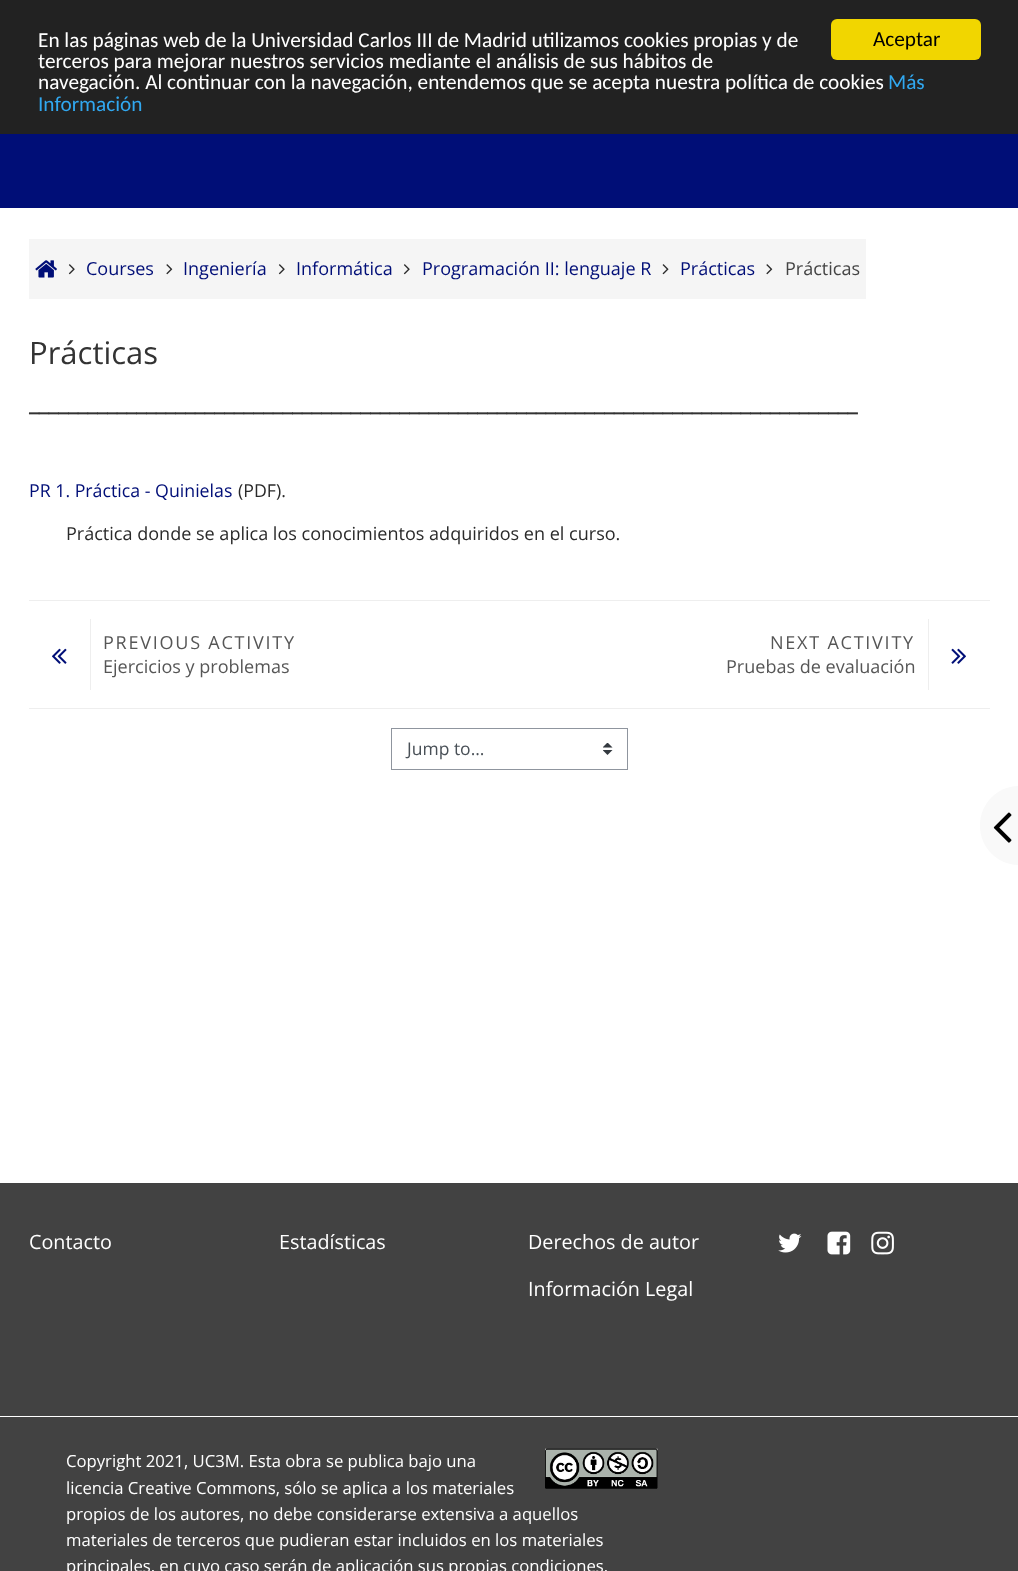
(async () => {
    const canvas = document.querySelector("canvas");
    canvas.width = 1018;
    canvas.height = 1571;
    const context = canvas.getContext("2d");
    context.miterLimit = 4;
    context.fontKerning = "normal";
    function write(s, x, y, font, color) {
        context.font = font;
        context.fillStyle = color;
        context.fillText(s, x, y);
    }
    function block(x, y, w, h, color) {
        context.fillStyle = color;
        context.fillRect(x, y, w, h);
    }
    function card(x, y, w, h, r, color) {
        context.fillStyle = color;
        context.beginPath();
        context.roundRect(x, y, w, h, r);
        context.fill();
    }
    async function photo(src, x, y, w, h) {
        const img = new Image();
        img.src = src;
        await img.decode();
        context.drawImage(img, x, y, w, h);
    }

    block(0, 0, 1018, 1571, "rgb(255, 255, 255)");
    block(0, 0, 1018, 134, "rgb(34, 34, 34)");
    write("En las páginas web de la Universidad Carlos III de Madrid utilizamos cookies propias y de", 38, 47, "21.25px Carlito", "rgb(255, 255, 255)");
    write("terceros para mejorar nuestros servicios mediante el análisis de sus hábitos de", 38, 68, "21.25px Carlito", "rgb(255, 255, 255)");
    write("navegación. Al continuar con la navegación, entendemos que se acepta nuestra política de cookies", 38, 89, "21.25px Carlito", "rgb(255, 255, 255)");
    write("Más", 888, 89, "21.25px Carlito", "rgb(49, 168, 240)");
    write("Información", 38, 111, "21.25px Carlito", "rgb(49, 168, 240)");
    card(831, 19, 150, 41, 6, "rgb(241, 214, 0)");
    write("Aceptar", 873, 46, "21.25px Carlito", "rgb(0, 0, 0)");
    block(0, 134, 1018, 74, "rgb(0, 14, 119)");
    block(29, 239, 837, 60, "rgb(245, 245, 245)");
    await photo("media/1.png", 35, 260, 22, 18);
    await photo("media/2.png", 68, 264, 7, 11);
    write("Courses", 86, 275, "18.05px Open Sans", "rgb(0, 14, 119)");
    await photo("media/3.png", 166, 264, 7, 11);
    write("Ingeniería", 183, 275, "18.05px Open Sans", "rgb(0, 14, 119)");
    await photo("media/2.png", 278, 264, 7, 11);
    write("Informática", 296, 275, "18.05px Open Sans", "rgb(0, 14, 119)");
    await photo("media/2.png", 403, 264, 7, 11);
    write("Programación II: lenguaje R", 422, 275, "18.05px Open Sans", "rgb(0, 14, 119)");
    await photo("media/4.png", 662, 264, 7, 11);
    write("Prácticas", 680, 275, "18.05px Open Sans", "rgb(0, 14, 119)");
    await photo("media/3.png", 766, 264, 7, 11);
    write("Prácticas", 785, 275, "18.05px Open Sans", "rgb(68, 68, 68)");
    write("Prácticas", 29, 364, "31px Open Sans", "rgb(51, 51, 51)");
    write("_____________________________________________________________________________________", 29, 411, "bold 22.25px Open Sans", "rgb(51, 51, 51)");
    write("PR 1. Práctica - Quinielas", 29, 497, "17.75px Open Sans", "rgb(0, 14, 119)");
    write("(PDF).", 238, 497, "17.75px Open Sans", "rgb(42, 42, 42)");
    write("Práctica donde se aplica los conocimientos adquiridos en el curso.", 66, 540, "18.05px Open Sans", "rgb(42, 42, 42)");
    block(29, 600, 961, 1, "rgb(238, 238, 238)");
    block(29, 708, 961, 1, "rgb(238, 238, 238)");
    block(90, 619, 1, 71, "rgb(238, 238, 238)");
    await photo("media/5.png", 52, 648, 15, 16);
    context.letterSpacing = "1.75px";
    write("PREVIOUS ACTIVITY", 103, 649, "18.05px Open Sans", "rgb(86, 86, 86)");
    context.letterSpacing = "0px";
    write("Ejercicios y problemas", 103, 673, "18.05px Open Sans", "rgb(86, 86, 86)");
    context.letterSpacing = "1.75px";
    write("NEXT ACTIVITY", 770, 649, "18.05px Open Sans", "rgb(86, 86, 86)");
    context.letterSpacing = "0px";
    write("Pruebas de evaluación", 726, 673, "18.05px Open Sans", "rgb(86, 86, 86)");
    block(928, 619, 1, 71, "rgb(238, 238, 238)");
    await photo("media/6.png", 951, 648, 15, 16);
    await photo("media/7.png", 603, 743, 10, 12);
    context.strokeStyle = "rgb(143, 149, 158)";
    context.strokeRect(391.5, 728.5, 236, 41);
    write("Jump to...", 407, 755, "17.5px Open Sans", "rgb(73, 80, 87)");
    context.fillStyle = "rgb(249, 249, 249)";
    context.beginPath();
    context.moveTo(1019, 786);
    context.lineTo(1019, 865);
    context.bezierCurveTo(997.5, 865, 980, 847.5, 980, 826);
    context.lineTo(980, 825);
    context.bezierCurveTo(980, 803.5, 997.5, 786, 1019, 786);
    context.closePath();
    context.fill();
    await photo("media/8.png", 993, 812, 19, 31);
    block(0, 1183, 1018, 388, "rgb(66, 66, 66)");
    write("Contacto", 29, 1249, "19.75px Open Sans", "rgb(255, 255, 255)");
    write("Estadísticas", 279, 1249, "19.75px Open Sans", "rgb(255, 255, 255)");
    write("Derechos de autor", 528, 1249, "19.75px Open Sans", "rgb(255, 255, 255)");
    write("Información Legal", 528, 1296, "19.75px Open Sans", "rgb(255, 255, 255)");
    await photo("media/9.png", 778, 1233, 24, 20);
    await photo("media/10.png", 827, 1231, 24, 24);
    await photo("media/11.png", 871, 1231, 23, 24);
    block(0, 1416, 1018, 1, "rgb(255, 255, 255)");
    await photo("media/12.png", 545, 1448, 113, 41);
    write("Copyright 2021, UC3M. Esta obra se publica bajo una", 66, 1467, "16.7px Open Sans", "rgb(255, 255, 255)");
    write("licencia Creative Commons, sólo se aplica a los materiales", 66, 1494, "16.7px Open Sans", "rgb(255, 255, 255)");
    write("propios de los autores, no debe considerarse extensiva a aquellos", 66, 1520, "16.7px Open Sans", "rgb(255, 255, 255)");
    write("materiales de terceros que pudieran estar incluidos en los materiales", 66, 1546, "16.7px Open Sans", "rgb(255, 255, 255)");
    write("principales, en cuyo caso serán de aplicación sus propias condiciones.", 66, 1572, "16.7px Open Sans", "rgb(255, 255, 255)");
})();
